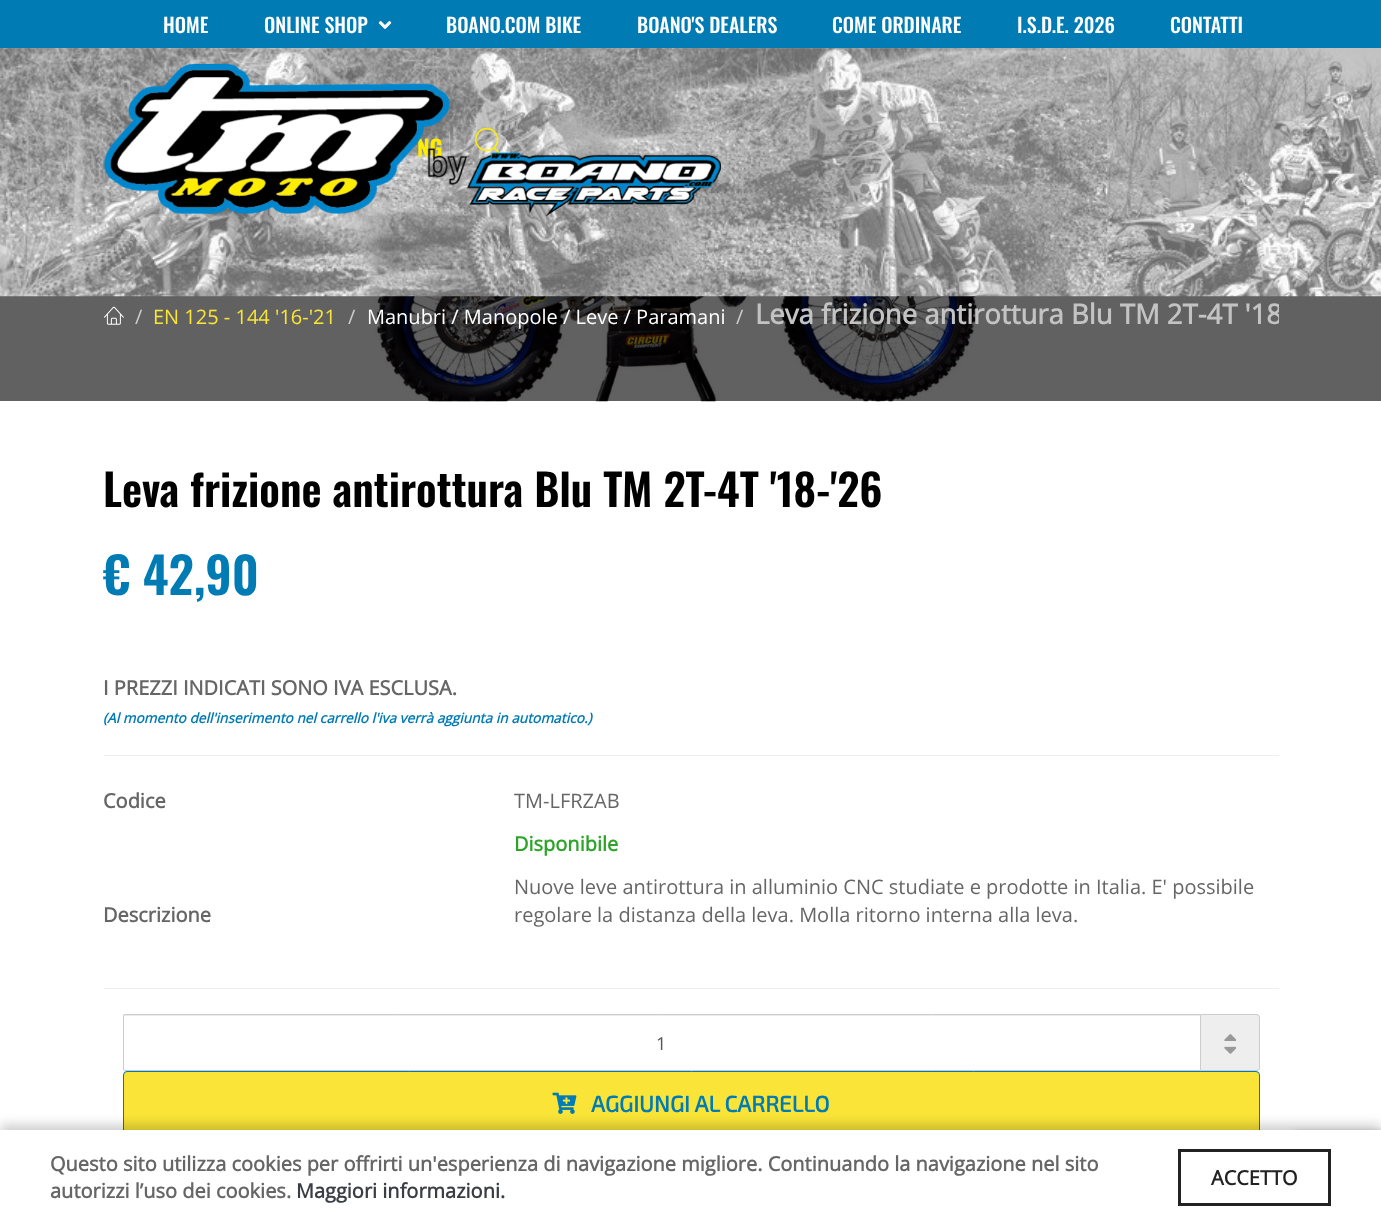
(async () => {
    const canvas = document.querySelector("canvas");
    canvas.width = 1381;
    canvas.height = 1224;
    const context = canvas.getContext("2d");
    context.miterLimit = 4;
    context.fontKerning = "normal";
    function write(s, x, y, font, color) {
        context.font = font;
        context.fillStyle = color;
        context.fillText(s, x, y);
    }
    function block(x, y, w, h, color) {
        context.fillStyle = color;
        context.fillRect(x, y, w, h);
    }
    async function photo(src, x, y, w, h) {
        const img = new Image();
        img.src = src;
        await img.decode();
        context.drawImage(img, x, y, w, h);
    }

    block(0, 0, 1381, 1224, "rgb(255, 255, 255)");
    await photo("media/5.png", 0, 296, 1381, 106);
    await photo("media/1.png", 0, 48, 1381, 249);
    block(0, 0, 1381, 48, "rgb(0, 123, 180)");
    write("HOME", 163, 33, "500 20px Oswald", "rgb(255, 255, 255)");
    write("ONLINE SHOP", 264, 33, "500 20px Oswald", "rgb(255, 255, 255)");
    await photo("media/2.png", 378, 21, 14, 8);
    write("BOANO.COM BIKE", 446, 33, "500 20px Oswald", "rgb(255, 255, 255)");
    write("BOANO'S DEALERS", 637, 33, "500 20px Oswald", "rgb(255, 255, 255)");
    write("COME ORDINARE", 832, 33, "500 20px Oswald", "rgb(255, 255, 255)");
    write("I.S.D.E. 2026", 1017, 33, "500 20px Oswald", "rgb(255, 255, 255)");
    write("CONTATTI", 1170, 33, "500 20px Oswald", "rgb(255, 255, 255)");
    write("NG", 417, 157, "bold 22.5px Oswald", "rgb(255, 237, 0)");
    block(449, 131, 1, 33, "rgba(255, 255, 255, 0.2)");
    await photo("media/4.png", 475, 127, 26, 27);
    await photo("media/3.png", 103, 64, 618, 152);
    await photo("media/6.png", 104, 306, 20, 19);
    write("/", 135, 324, "20px Open Sans", "rgb(204, 204, 204)");
    write("EN 125 - 144 '16-'21", 153, 324, "20px Open Sans", "rgb(249, 228, 55)");
    write("/", 348, 324, "20px Open Sans", "rgb(204, 204, 204)");
    write("Manubri / Manopole / Leve / Paramani", 367, 324, "20px Open Sans", "rgb(255, 255, 255)");
    write("/", 736, 324, "20px Open Sans", "rgb(204, 204, 204)");
    context.save();
    context.beginPath();
    context.roundRect(104, 294, 1175, 39, 4);
    context.clip();
    write("Leva frizione antirottura Blu TM 2T-4T '18", 755, 324, "bold 27.5px Open Sans", "rgb(195, 195, 195)");
    context.restore();
    write("Leva frizione antirottura Blu TM 2T-4T '18-'26", 103, 507, "600 43.75px Oswald", "rgb(0, 0, 0)");
    write("€ 42,90", 103, 595, "600 50px Oswald", "rgb(0, 123, 180)");
    write("I PREZZI INDICATI SONO IVA ESCLUSA.", 103, 695, "bold 20px Open Sans", "rgb(102, 102, 102)");
    write("(Al momento dell'inserimento nel carrello l'iva verrà aggiunta in automatico.)", 103, 723, "italic bold 13.75px Open Sans", "rgb(0, 123, 180)");
    block(104, 755, 1175, 1, "rgb(238, 238, 238)");
    write("Codice", 103, 808, "bold 20px Open Sans", "rgb(102, 102, 102)");
    write("TM-LFRZAB", 514, 808, "20px Open Sans", "rgb(102, 102, 102)");
    write("Disponibile", 514, 851, "bold 20px Open Sans", "rgb(45, 163, 40)");
    write("Descrizione", 103, 922, "bold 20px Open Sans", "rgb(102, 102, 102)");
    write("Nuove leve antirottura in alluminio CNC studiate e prodotte in Italia. E' possibile", 514, 894, "20px Open Sans", "rgb(102, 102, 102)");
    write("regolare la distanza della leva. Molla ritorno interna alla leva.", 514, 922, "20px Open Sans", "rgb(102, 102, 102)");
    block(104, 988, 1175, 1, "rgb(238, 238, 238)");
    block(124, 1015, 1076, 1, "rgb(236, 236, 236)");
    context.beginPath();
    context.roundRect(123.5, 1014.5, 1077, 56, [1.5, 0, 0, 1.5]);
    context.strokeStyle = "rgb(204, 204, 204)";
    context.stroke();
    write("1", 656, 1050, "18px Open Sans", "rgb(85, 85, 85)");
    context.fillStyle = "rgb(238, 238, 238)";
    context.beginPath();
    context.roundRect(1201, 1014, 59, 57, [0, 4, 4, 0]);
    context.fill();
    context.fillStyle = "rgb(204, 204, 204)";
    context.beginPath();
    context.moveTo(1201, 1014);
    context.lineTo(1256, 1014);
    context.bezierCurveTo(1258, 1014, 1260, 1015, 1260, 1018);
    context.lineTo(1260, 1068);
    context.bezierCurveTo(1260, 1070, 1258, 1071, 1256, 1071);
    context.lineTo(1201, 1071);
    context.closePath();
    context.moveTo(1201, 1015);
    context.lineTo(1256, 1015);
    context.bezierCurveTo(1258, 1015, 1259, 1016, 1259, 1018);
    context.lineTo(1259, 1068);
    context.bezierCurveTo(1259, 1069, 1258, 1070, 1256, 1070);
    context.lineTo(1201, 1070);
    context.closePath();
    context.fill("evenodd");
    await photo("media/7.png", 1224, 1034, 12, 7);
    await photo("media/8.png", 1224, 1046, 12, 8);
    context.fillStyle = "rgb(249, 228, 55)";
    context.beginPath();
    context.roundRect(123.5, 1071.5, 1136, 64, 3.5);
    context.fill();
    context.strokeStyle = "rgb(0, 123, 180)";
    context.stroke();
    await photo("media/9.png", 552, 1092, 25, 22);
    write("AGGIUNGI AL CARRELLO", 591, 1112, "bold 22.5px 'Exo 2'", "rgb(0, 123, 180)");
    context.fillStyle = "rgba(0, 0, 0, 0.2)";
    context.filter = "blur(6px)";
    context.beginPath();
    context.rect(0, 1125, 1381, 95);
    context.fill();
    context.filter = "none";
    context.fillStyle = "rgb(128, 128, 128)";
    context.filter = "blur(3px)";
    context.beginPath();
    context.roundRect(1294, 1133, 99, 75, 2.5);
    context.fill();
    context.filter = "none";
    block(0, 1130, 1381, 94, "rgb(255, 255, 255)");
    write("Questo sito utilizza cookies per offrirti un'esperienza di navigazione migliore. Continuando la navigazione nel sito", 50, 1171, "bold 20px Open Sans", "rgb(102, 102, 102)");
    write("autorizzi l’uso dei cookies.", 50, 1198, "bold 20px Open Sans", "rgb(102, 102, 102)");
    write("Maggiori informazioni.", 296, 1198, "bold 20px Open Sans", "rgb(58, 61, 69)");
    context.strokeStyle = "rgb(34, 34, 34)";
    context.lineWidth = 3;
    context.strokeRect(1179.5, 1150.5, 150, 54);
    write("ACCETTO", 1211, 1185, "bold 20px Open Sans", "rgb(34, 34, 34)");
})();
